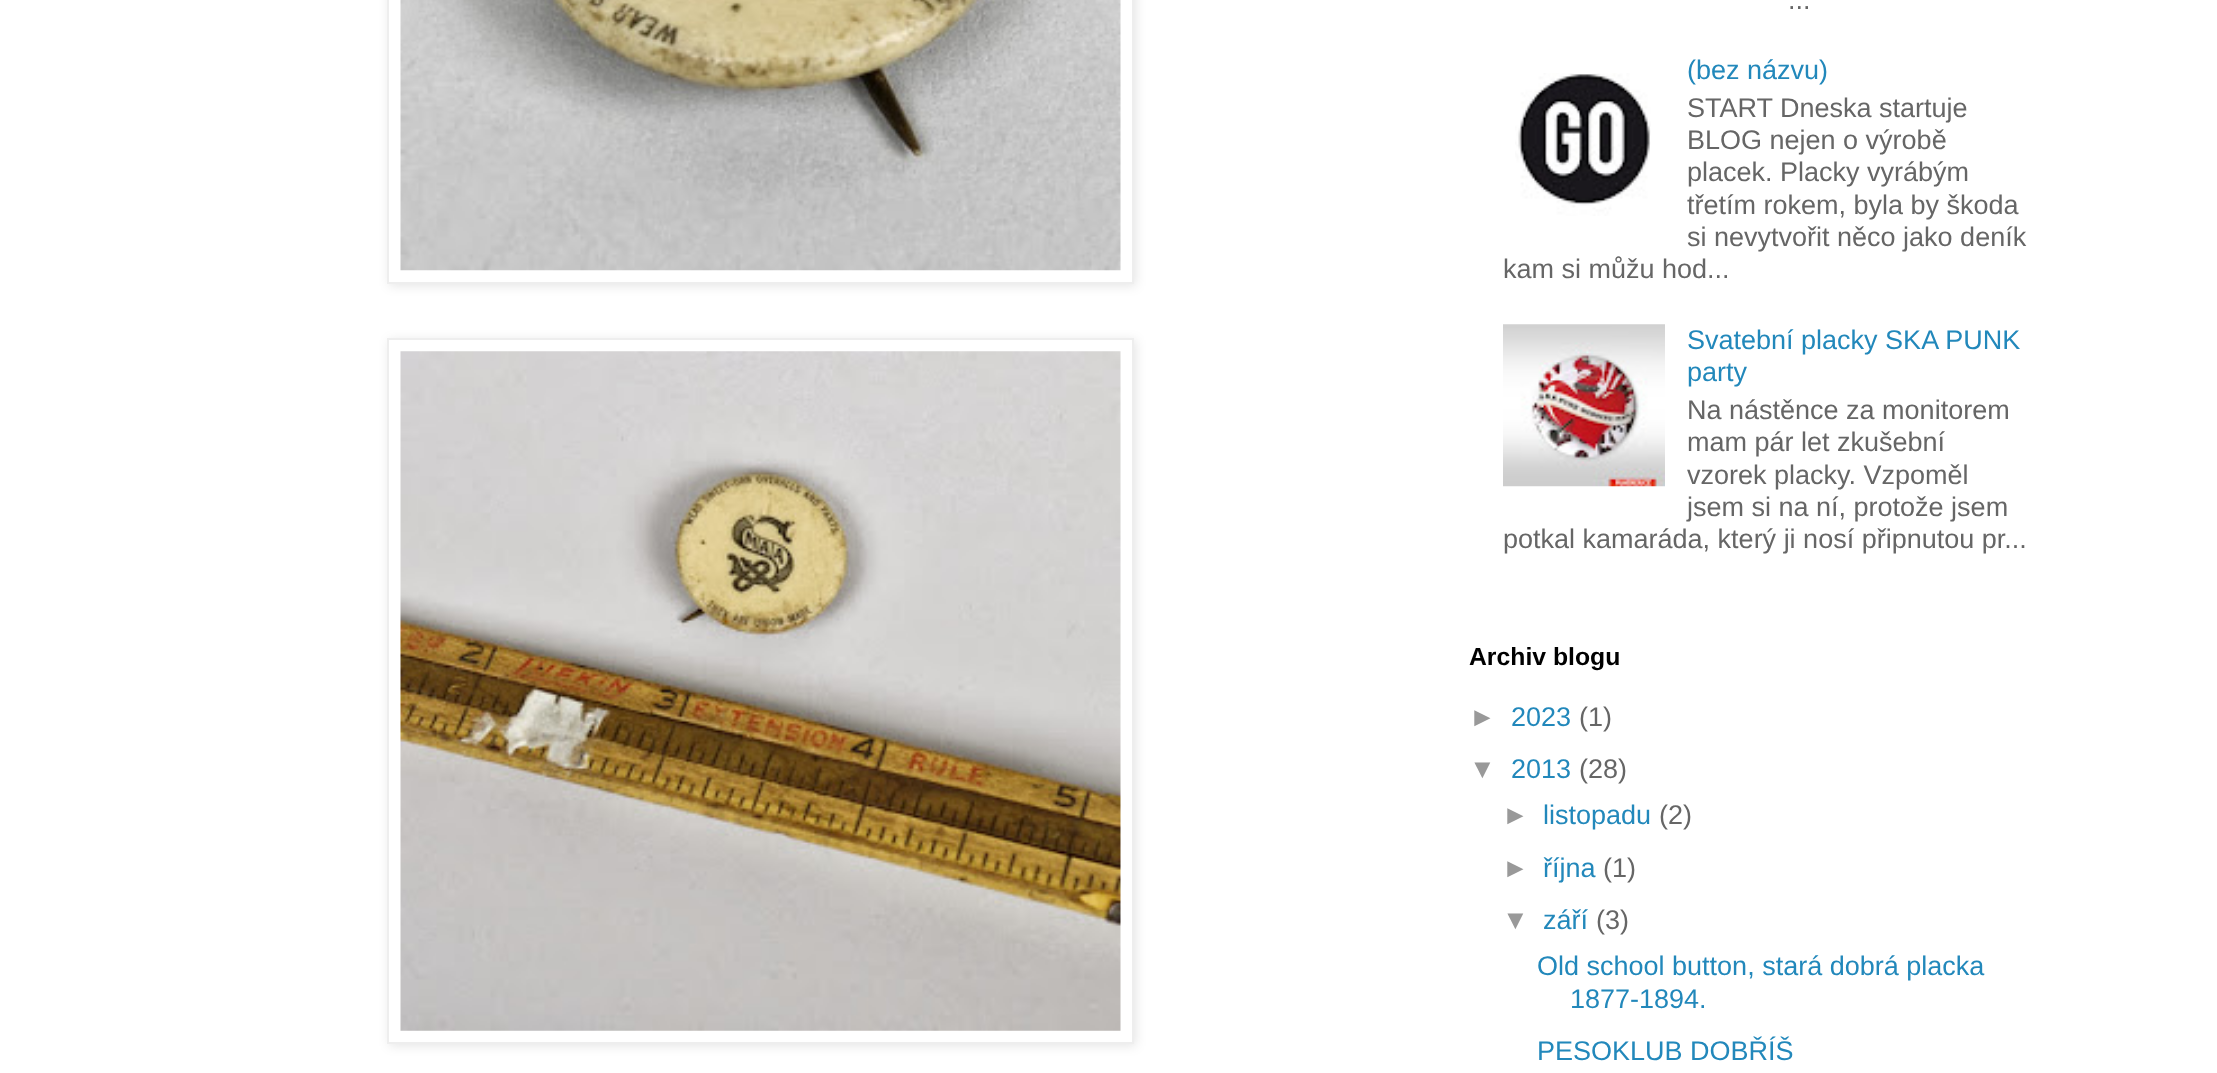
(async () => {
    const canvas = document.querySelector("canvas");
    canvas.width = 2217;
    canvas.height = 1073;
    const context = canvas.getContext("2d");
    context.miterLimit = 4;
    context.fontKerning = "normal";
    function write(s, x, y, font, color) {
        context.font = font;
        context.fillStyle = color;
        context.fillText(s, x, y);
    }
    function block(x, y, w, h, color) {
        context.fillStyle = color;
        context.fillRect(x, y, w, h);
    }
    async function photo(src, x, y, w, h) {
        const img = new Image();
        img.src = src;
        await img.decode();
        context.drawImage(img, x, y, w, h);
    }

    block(0, 0, 2217, 1073, "rgb(255, 255, 255)");
    context.fillStyle = "rgba(0, 0, 0, 0.1)";
    context.filter = "blur(5.5px)";
    context.beginPath();
    context.rect(389, -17, 747, 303);
    context.fill();
    context.filter = "none";
    context.fillStyle = "rgb(255, 255, 255)";
    context.beginPath();
    context.rect(388, -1, 745, 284);
    context.fill();
    context.strokeStyle = "rgb(238, 238, 238)";
    context.lineWidth = 2;
    context.stroke();
    await photo("media/1.png", 400, 0, 721, 271);
    context.save();
    context.beginPath();
    context.moveTo(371, 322);
    context.lineTo(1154, 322);
    context.lineTo(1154, 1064);
    context.lineTo(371, 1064);
    context.closePath();
    context.moveTo(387, 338);
    context.lineTo(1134, 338);
    context.lineTo(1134, 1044);
    context.lineTo(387, 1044);
    context.closePath();
    context.clip("evenodd");
    context.fillStyle = "rgba(0, 0, 0, 0.1)";
    context.filter = "blur(5.5px)";
    context.beginPath();
    context.rect(389, 340, 747, 706);
    context.fill();
    context.filter = "none";
    context.restore();
    context.strokeRect(388, 339, 745, 704);
    await photo("media/2.png", 400, 351, 721, 680);
    write("...", 1788, 9, "27px Liberation Sans", "rgb(102, 102, 102)");
    await photo("media/3.png", 1515, 73, 136, 143);
    write("(bez názvu)", 1687, 79, "27px Liberation Sans", "rgb(34, 136, 187)");
    write("START Dneska startuje", 1687, 117, "27px Liberation Sans", "rgb(102, 102, 102)");
    write("BLOG nejen o výrobě", 1687, 149, "27px Liberation Sans", "rgb(102, 102, 102)");
    write("placek. Placky vyrábým", 1687, 181, "27px Liberation Sans", "rgb(102, 102, 102)");
    write("třetím rokem, byla by škoda", 1687, 214, "27px Liberation Sans", "rgb(102, 102, 102)");
    write("si nevytvořit něco jako deník", 1687, 246, "27px Liberation Sans", "rgb(102, 102, 102)");
    write("kam si můžu hod...", 1503, 278, "27px Liberation Sans", "rgb(102, 102, 102)");
    await photo("media/4.png", 1503, 324, 162, 163);
    write("Svatební placky SKA PUNK", 1687, 349, "27px Liberation Sans", "rgb(34, 136, 187)");
    write("party", 1687, 381, "27px Liberation Sans", "rgb(34, 136, 187)");
    write("Na nástěnce za monitorem", 1687, 419, "27px Liberation Sans", "rgb(102, 102, 102)");
    write("mam pár let zkušební", 1687, 451, "27px Liberation Sans", "rgb(102, 102, 102)");
    write("vzorek placky. Vzpoměl", 1687, 484, "27px Liberation Sans", "rgb(102, 102, 102)");
    write("jsem si na ní, protože jsem", 1687, 516, "27px Liberation Sans", "rgb(102, 102, 102)");
    write("potkal kamaráda, který ji nosí připnutou pr...", 1503, 548, "27px Liberation Sans", "rgb(102, 102, 102)");
    write("Archiv blogu", 1469, 665, "bold 24.75px Liberation Sans", "rgb(0, 0, 0)");
    write("►", 1469, 726, "27px Liberation Sans", "rgb(153, 153, 153)");
    write("2023", 1511, 726, "27px Liberation Sans", "rgb(34, 136, 187)");
    write("(1)", 1579, 726, "27px Liberation Sans", "rgb(102, 102, 102)");
    write("▼", 1469, 778, "27px Liberation Sans", "rgb(153, 153, 153)");
    write("2013", 1511, 778, "27px Liberation Sans", "rgb(34, 136, 187)");
    write("(28)", 1579, 778, "27px Liberation Sans", "rgb(102, 102, 102)");
    write("►", 1502, 824, "27px Liberation Sans", "rgb(153, 153, 153)");
    write("listopadu", 1543, 824, "27px Liberation Sans", "rgb(34, 136, 187)");
    write("(2)", 1659, 824, "27px Liberation Sans", "rgb(102, 102, 102)");
    write("►", 1502, 877, "27px Liberation Sans", "rgb(153, 153, 153)");
    write("října", 1543, 877, "27px Liberation Sans", "rgb(34, 136, 187)");
    write("(1)", 1603, 877, "27px Liberation Sans", "rgb(102, 102, 102)");
    write("▼", 1502, 929, "27px Liberation Sans", "rgb(153, 153, 153)");
    write("září", 1543, 929, "27px Liberation Sans", "rgb(34, 136, 187)");
    write("(3)", 1596, 929, "27px Liberation Sans", "rgb(102, 102, 102)");
    write("Old school button, stará dobrá placka", 1537, 975, "27px Liberation Sans", "rgb(34, 136, 187)");
    write("1877-1894.", 1570, 1008, "27px Liberation Sans", "rgb(34, 136, 187)");
    write("PESOKLUB DOBŘÍŠ", 1537, 1060, "27px Liberation Sans", "rgb(34, 136, 187)");
})();
